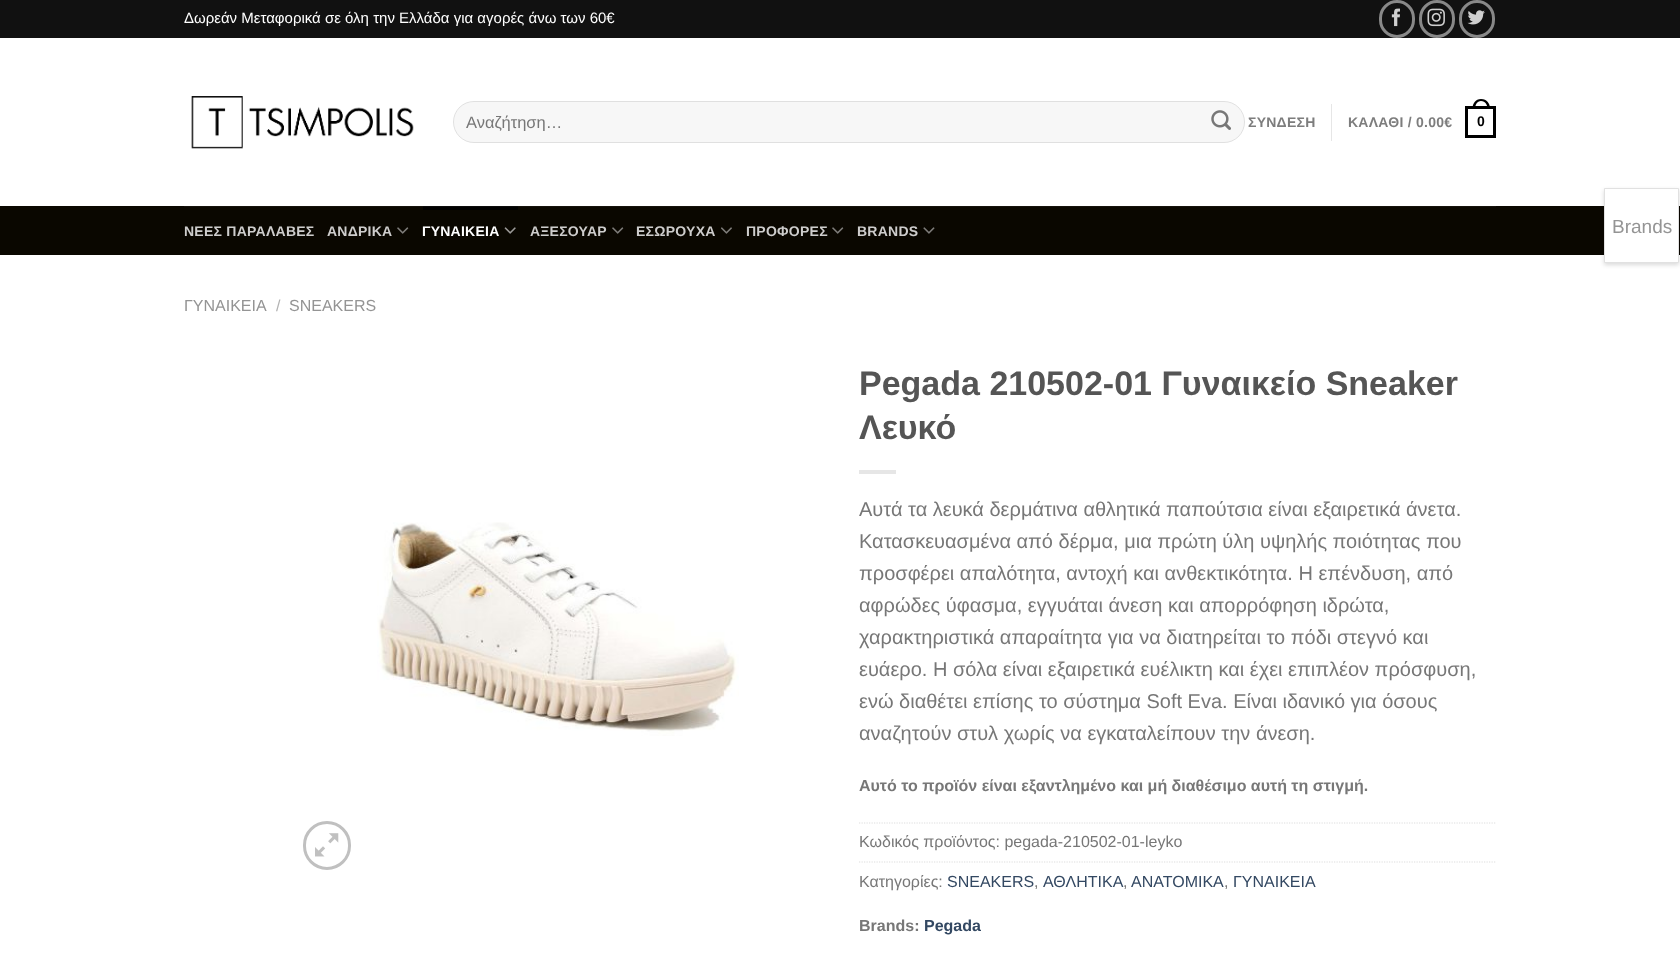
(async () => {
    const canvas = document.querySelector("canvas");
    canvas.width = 1680;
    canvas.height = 972;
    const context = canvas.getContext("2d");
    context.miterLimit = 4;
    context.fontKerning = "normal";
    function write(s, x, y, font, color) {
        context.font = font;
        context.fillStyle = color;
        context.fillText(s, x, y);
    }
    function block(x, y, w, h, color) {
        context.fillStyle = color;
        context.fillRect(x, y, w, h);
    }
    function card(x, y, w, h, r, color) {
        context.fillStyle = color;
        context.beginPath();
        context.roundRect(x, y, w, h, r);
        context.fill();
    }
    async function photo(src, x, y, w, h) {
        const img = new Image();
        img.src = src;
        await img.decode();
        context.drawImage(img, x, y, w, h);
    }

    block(0, 0, 1680, 972, "rgb(255, 255, 255)");
    block(0, 0, 1680, 38, "rgb(17, 17, 17)");
    write("Δωρεάν Μεταφορικά σε όλη την Ελλάδα για αγορές άνω των 60€", 184, 23, "15px Liberation Sans", "rgb(255, 255, 255)");
    context.beginPath();
    context.roundRect(1380.5, 1.5, 33, 35, 16.5);
    context.strokeStyle = "rgb(136, 136, 136)";
    context.lineWidth = 3;
    context.stroke();
    await photo("media/1.png", 1391, 8, 9, 19);
    context.beginPath();
    context.roundRect(1420.5, 1.5, 33, 35, 16.5);
    context.stroke();
    await photo("media/2.png", 1427, 8, 18, 19);
    context.beginPath();
    context.roundRect(1460.5, 1.5, 33, 35, 16.5);
    context.stroke();
    await photo("media/3.png", 1467, 10, 18, 15);
    await photo("media/4.png", 191, 96, 223, 53);
    card(453, 101, 792, 42, 21, "rgb(247, 247, 247)");
    context.beginPath();
    context.roundRect(453.5, 101.5, 791, 41, 20.5);
    context.strokeStyle = "rgba(0, 0, 0, 0.09)";
    context.lineWidth = 1;
    context.stroke();
    context.save();
    context.beginPath();
    context.rect(466, 113, 760, 18);
    context.clip();
    write("Αναζήτηση…", 466, 128, "16.5px Liberation Sans", "rgb(119, 119, 119)");
    context.restore();
    await photo("media/5.png", 1211, 110, 20, 20);
    context.letterSpacing = "0.25px";
    write("ΣΥΝΔΕΣΗ", 1248, 127, "bold 14px Liberation Sans", "rgb(125, 125, 125)");
    block(1331, 104, 1, 37, "rgb(230, 230, 230)");
    write("ΚΑΛΑΘΙ / 0.00€", 1348, 127, "bold 14px Liberation Sans", "rgb(125, 125, 125)");
    context.strokeStyle = "rgb(0, 0, 0)";
    context.lineWidth = 3;
    context.strokeRect(1466.5, 107.5, 28, 29);
    context.fillStyle = "rgb(0, 0, 0)";
    context.beginPath();
    context.moveTo(1481, 99);
    context.bezierCurveTo(1487, 99, 1490, 103.5, 1490, 109);
    context.lineTo(1472.5, 109);
    context.bezierCurveTo(1472.5, 103.5, 1475.5, 99, 1481, 99);
    context.closePath();
    context.moveTo(1481, 101);
    context.bezierCurveTo(1485.5, 101, 1487.5, 105, 1487.5, 109);
    context.lineTo(1475, 109);
    context.bezierCurveTo(1475, 105, 1477, 101, 1481, 101);
    context.closePath();
    context.fill("evenodd");
    write("0", 1477, 126, "bold 14px Liberation Sans", "rgb(0, 0, 0)");
    block(0, 206, 1680, 49, "rgb(10, 7, 0)");
    block(184, 206, 1312, 1, "rgb(21, 18, 12)");
    write("ΝΕΕΣ ΠΑΡΑΛΑΒΕΣ", 184, 236, "bold 14px Liberation Sans", "rgb(206, 205, 204)");
    write("ΑΝΔΡΙΚΑ", 327, 236, "bold 14px Liberation Sans", "rgb(206, 205, 204)");
    await photo("media/6.png", 397, 227, 12, 7);
    block(423, 207, 95, 3, "rgb(0, 0, 0)");
    block(423, 206, 95, 1, "rgb(12, 12, 12)");
    write("ΓΥΝΑΙΚΕΙΑ", 422, 236, "bold 14px Liberation Sans", "rgb(255, 255, 255)");
    await photo("media/7.png", 504, 227, 12, 7);
    write("ΑΞΕΣΟΥΑΡ", 530, 236, "bold 14px Liberation Sans", "rgb(206, 205, 204)");
    await photo("media/6.png", 612, 227, 12, 7);
    write("ΕΣΩΡΟΥΧΑ", 636, 236, "bold 14px Liberation Sans", "rgb(206, 205, 204)");
    await photo("media/8.png", 721, 227, 11, 7);
    write("ΠΡΟΦΟΡΕΣ", 746, 236, "bold 14px Liberation Sans", "rgb(206, 205, 204)");
    await photo("media/6.png", 832, 227, 12, 7);
    write("BRANDS", 857, 236, "bold 14px Liberation Sans", "rgb(206, 205, 204)");
    await photo("media/9.png", 923, 227, 12, 7);
    context.letterSpacing = "0px";
    write("ΓΥΝΑΙΚΕΙΑ", 184, 311, "16px Liberation Sans", "rgb(148, 148, 148)");
    write("/", 276, 311, "16px Liberation Sans", "rgb(178, 178, 178)");
    write("SNEAKERS", 289, 311, "16px Liberation Sans", "rgb(148, 148, 148)");
    await photo("media/10.png", 377, 522, 362, 214);
    context.beginPath();
    context.roundRect(304.5, 822.5, 45, 46, 22.5);
    context.strokeStyle = "rgb(192, 192, 192)";
    context.stroke();
    await photo("media/11.png", 315, 833, 24, 24);
    write("Pegada 210502-01 Γυναικείο Sneaker", 859, 395, "bold 34px Liberation Sans", "rgb(85, 85, 85)");
    write("Λευκό", 859, 439, "bold 34px Liberation Sans", "rgb(85, 85, 85)");
    block(859, 470, 37, 4, "rgb(230, 230, 230)");
    write("Αυτά τα λευκά δερμάτινα αθλητικά παπούτσια είναι εξαιρετικά άνετα.", 859, 516, "20px Liberation Sans", "rgb(119, 119, 119)");
    write("Κατασκευασμένα από δέρμα, μια πρώτη ύλη υψηλής ποιότητας που", 859, 548, "20px Liberation Sans", "rgb(119, 119, 119)");
    write("προσφέρει απαλότητα, αντοχή και ανθεκτικότητα. Η επένδυση, από", 859, 580, "20px Liberation Sans", "rgb(119, 119, 119)");
    write("αφρώδες ύφασμα, εγγυάται άνεση και απορρόφηση ιδρώτα,", 859, 612, "20px Liberation Sans", "rgb(119, 119, 119)");
    write("χαρακτηριστικά απαραίτητα για να διατηρείται το πόδι στεγνό και", 859, 644, "20px Liberation Sans", "rgb(119, 119, 119)");
    write("ευάερο. Η σόλα είναι εξαιρετικά ευέλικτη και έχει επιπλέον πρόσφυση,", 859, 676, "20px Liberation Sans", "rgb(119, 119, 119)");
    write("ενώ διαθέτει επίσης το σύστημα Soft Eva. Είναι ιδανικό για όσους", 859, 708, "20px Liberation Sans", "rgb(119, 119, 119)");
    write("αναζητούν στυλ χωρίς να εγκαταλείπουν την άνεση.", 859, 740, "20px Liberation Sans", "rgb(119, 119, 119)");
    write("Αυτό το προϊόν είναι εξαντλημένο και μή διαθέσιμο αυτή τη στιγμή.", 859, 791, "bold 16px Liberation Sans", "rgb(119, 119, 119)");
    context.beginPath();
    context.moveTo(859, 823);
    context.lineTo(1496, 823);
    context.strokeStyle = "rgb(221, 221, 221)";
    context.lineWidth = 1.2;
    context.setLineDash([1.25, 1.25]);
    context.stroke();
    write("Κωδικός προϊόντος: pegada-210502-01-leyko", 859, 847, "16px Liberation Sans", "rgb(119, 119, 119)");
    context.beginPath();
    context.moveTo(859, 862);
    context.lineTo(1496, 862);
    context.stroke();
    write("Κατηγορίες:", 859, 887, "16px Liberation Sans", "rgb(119, 119, 119)");
    write("SNEAKERS", 947, 887, "16px Liberation Sans", "rgb(51, 72, 98)");
    write("ΑΘΛΗΤΙΚΑ", 1043, 887, "16px Liberation Sans", "rgb(51, 72, 98)");
    write("ΑΝΑΤΟΜΙΚΑ", 1131, 887, "16px Liberation Sans", "rgb(51, 72, 98)");
    write("ΓΥΝΑΙΚΕΙΑ", 1233, 887, "16px Liberation Sans", "rgb(51, 72, 98)");
    write(",", 1034, 887, "16px Liberation Sans", "rgb(119, 119, 119)");
    write(",", 1123, 887, "16px Liberation Sans", "rgb(119, 119, 119)");
    write(",", 1224, 887, "16px Liberation Sans", "rgb(119, 119, 119)");
    write("Brands:", 859, 931, "bold 16px Liberation Sans", "rgb(119, 119, 119)");
    write("Pegada", 924, 931, "bold 16px Liberation Sans", "rgb(51, 72, 98)");
    context.fillStyle = "rgba(0, 0, 0, 0.15)";
    context.filter = "blur(2px)";
    context.beginPath();
    context.rect(1604, 190, 75, 75);
    context.fill();
    context.filter = "none";
    context.fillStyle = "rgb(255, 255, 255)";
    context.beginPath();
    context.rect(1604.5, 188.5, 74, 74);
    context.fill();
    context.strokeStyle = "rgb(225, 225, 225)";
    context.lineWidth = 1;
    context.setLineDash([]);
    context.stroke();
    write("Brands", 1612, 233, "19px Liberation Sans", "rgb(148, 148, 148)");
})();
